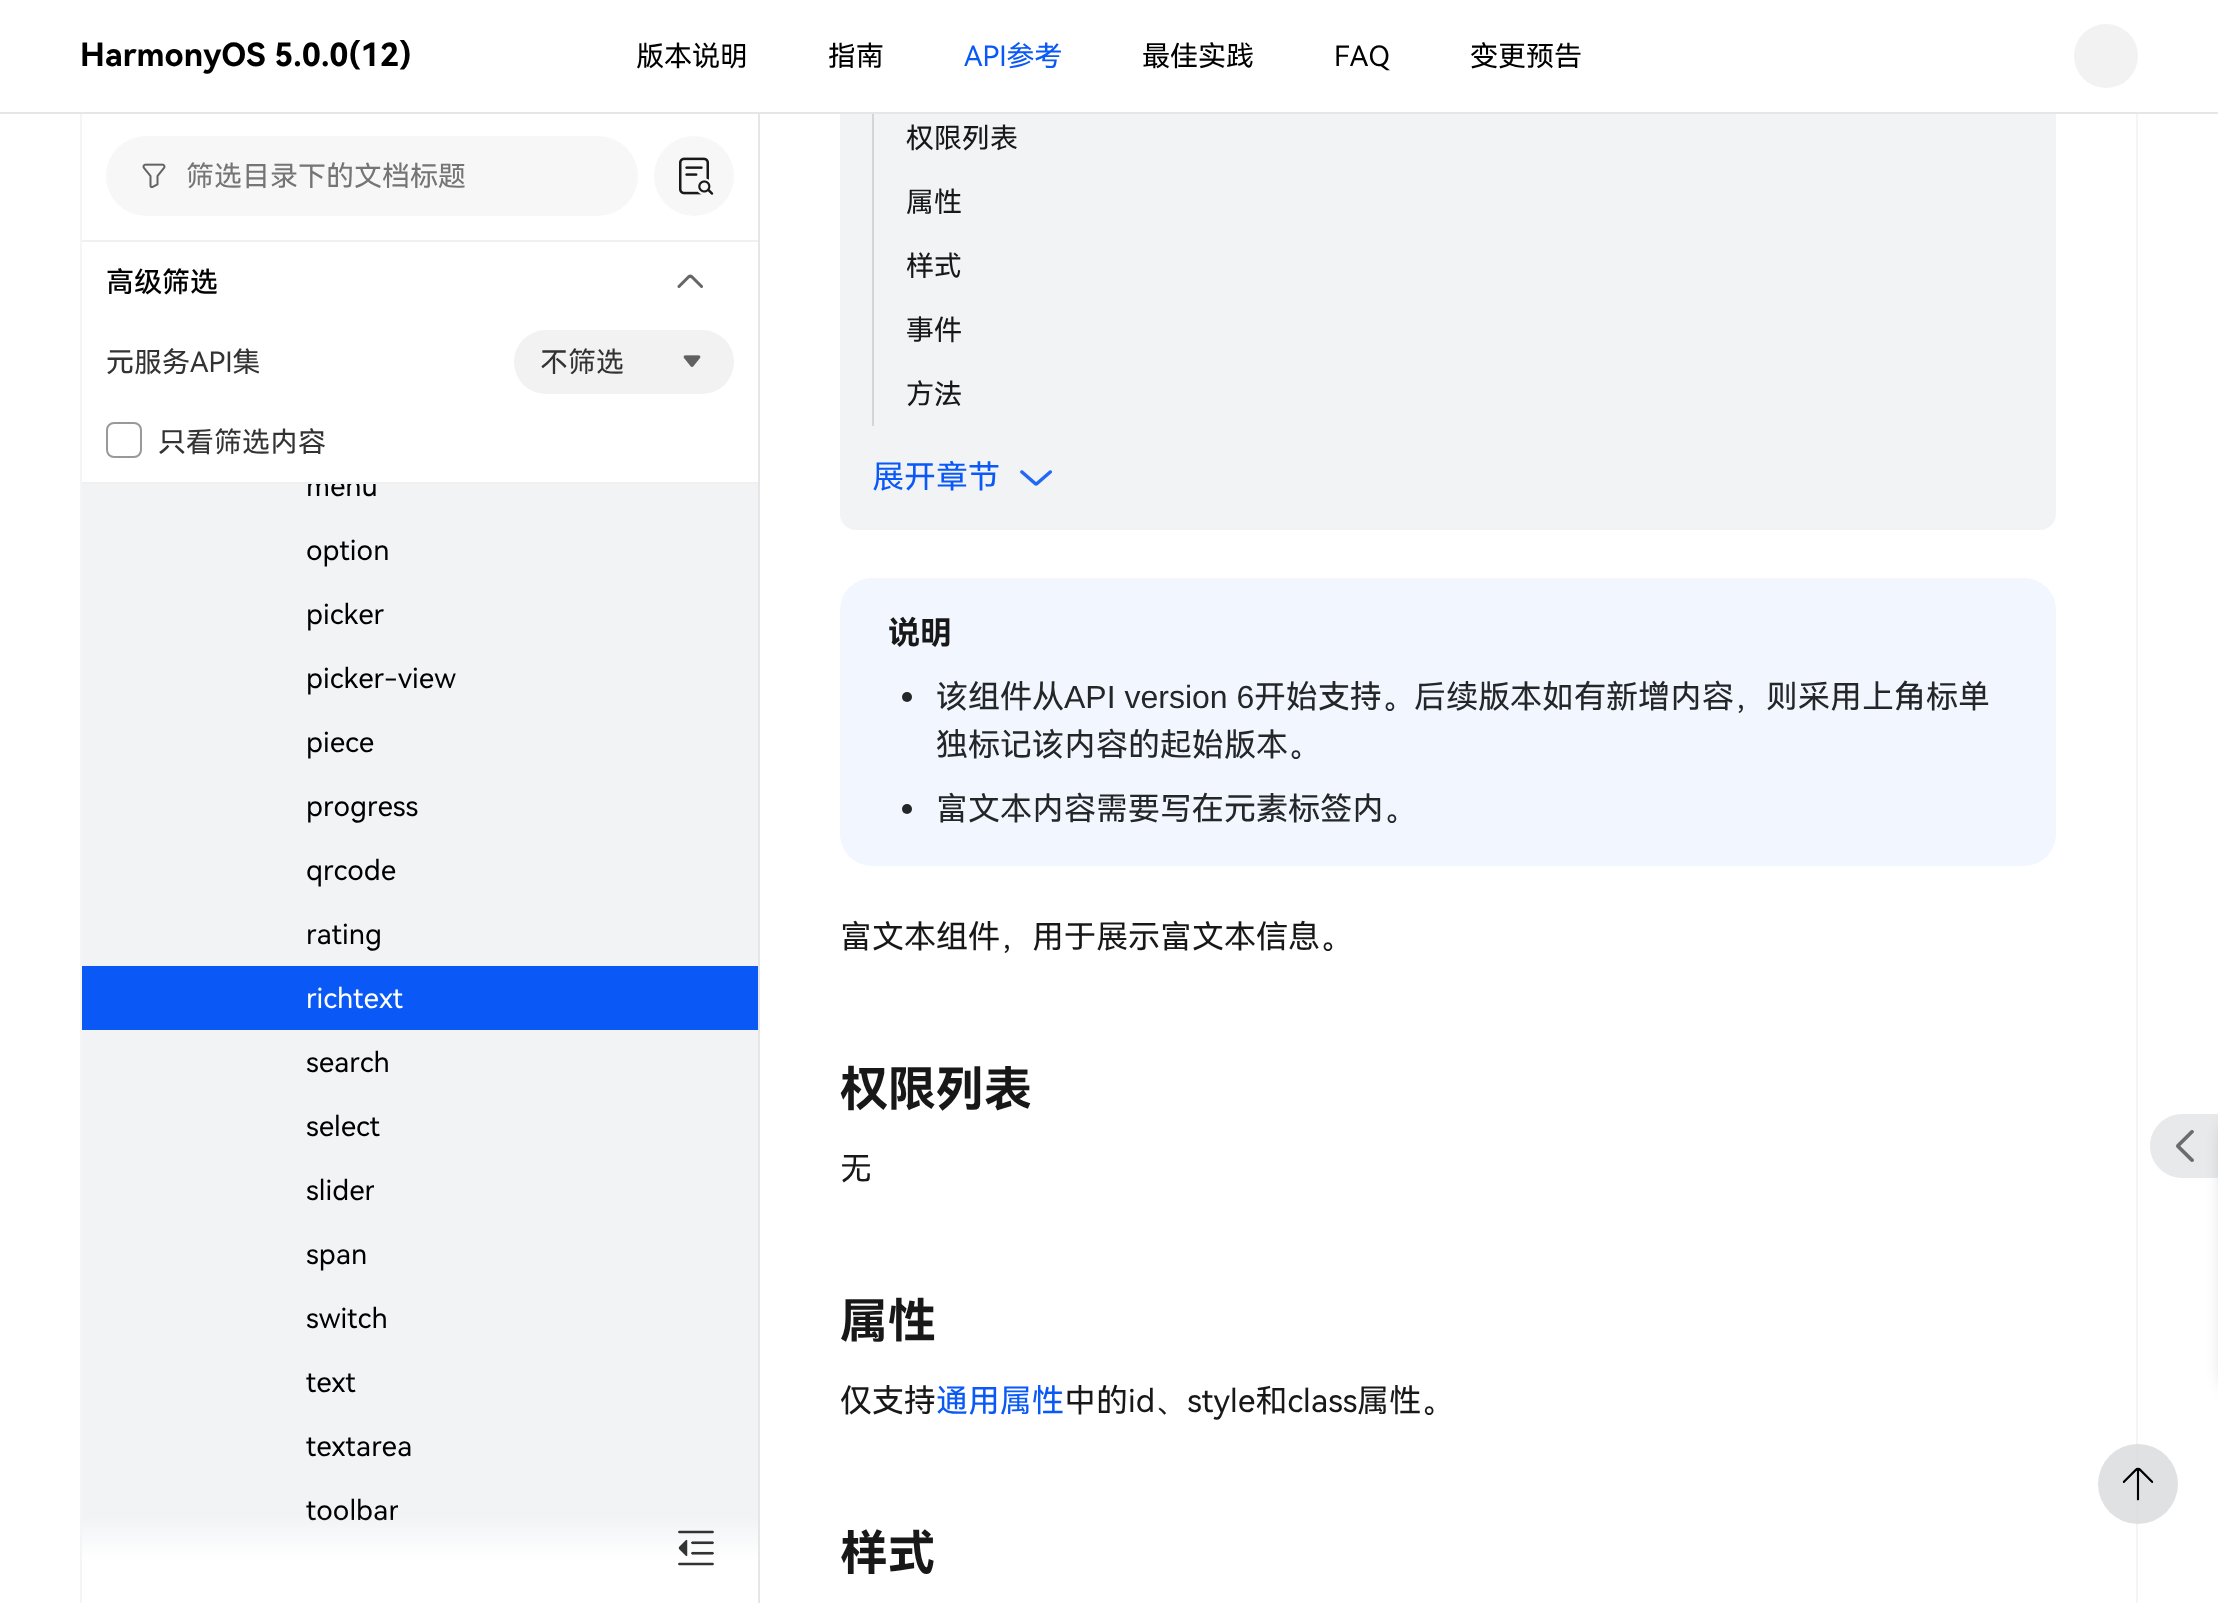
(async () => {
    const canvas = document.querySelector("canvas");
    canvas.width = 2218;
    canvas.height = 1603;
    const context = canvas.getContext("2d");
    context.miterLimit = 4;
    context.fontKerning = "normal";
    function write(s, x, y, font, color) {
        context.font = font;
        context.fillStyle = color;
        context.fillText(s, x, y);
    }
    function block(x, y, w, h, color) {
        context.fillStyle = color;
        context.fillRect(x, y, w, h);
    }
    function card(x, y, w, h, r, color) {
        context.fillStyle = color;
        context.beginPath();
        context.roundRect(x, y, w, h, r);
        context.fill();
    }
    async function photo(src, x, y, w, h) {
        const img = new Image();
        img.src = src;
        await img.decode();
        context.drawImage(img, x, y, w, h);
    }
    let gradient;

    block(0, 0, 2218, 1603, "rgb(255, 255, 255)");
    card(840, 2, 1216, 528, 16, "rgb(241, 243, 245)");
    block(872, 106, 2, 320, "rgb(212, 213, 214)");
    block(840, 2, 1216, 110, "rgb(255, 255, 255)");
    block(0, 112, 2218, 2, "rgb(230, 230, 230)");
    write("HarmonyOS", 80, 66, "bold 32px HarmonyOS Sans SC", "rgb(0, 0, 0)");
    write("5.0.0(12)", 274, 66, "bold 32px HarmonyOS Sans SC", "rgb(0, 0, 0)");
    write("版本说明", 636, 66, "28px HarmonyOS Sans SC", "rgb(0, 0, 0)");
    write("指南", 828, 66, "28px HarmonyOS Sans SC", "rgb(0, 0, 0)");
    write("API参考", 964, 66, "28px HarmonyOS Sans SC", "rgb(10, 89, 247)");
    write("最佳实践", 1142, 66, "28px HarmonyOS Sans SC", "rgb(0, 0, 0)");
    write("FAQ", 1334, 66, "28px HarmonyOS Sans SC", "rgb(0, 0, 0)");
    write("变更预告", 1470, 66, "28px HarmonyOS Sans SC", "rgb(0, 0, 0)");
    context.fillStyle = "rgb(242, 242, 242)";
    context.beginPath();
    context.arc(2106, 56, 32, 0, Math.PI * 2);
    context.fill();
    block(758, 114, 2, 1489, "rgb(230, 230, 230)");
    block(80, 114, 2, 1489, "rgb(245, 245, 245)");
    card(106, 136, 532, 80, 40, "rgb(247, 247, 247)");
    await photo("media/1.png", 142, 163, 24, 26);
    write("筛选目录下的文档标题", 186, 186, "28px HarmonyOS Sans SC", "rgb(117, 117, 117)");
    context.fillStyle = "rgb(247, 247, 247)";
    context.beginPath();
    context.arc(694, 176, 40, 0, Math.PI * 2);
    context.fill();
    await photo("media/2.png", 679, 157, 35, 38);
    block(82, 240, 676, 2, "rgb(240, 240, 240)");
    block(82, 482, 676, 2, "rgb(240, 240, 240)");
    write("高级筛选", 106, 292, "500 28px HarmonyOS Sans SC", "rgb(0, 0, 0)");
    await photo("media/3.png", 677, 274, 26, 14);
    write("元服务API集", 106, 372, "28px HarmonyOS Sans SC", "rgb(51, 51, 51)");
    card(514, 330, 220, 64, 32, "rgb(242, 242, 242)");
    write("不筛选", 540, 372, "28px HarmonyOS Sans SC", "rgb(51, 51, 51)");
    await photo("media/4.png", 683, 355, 18, 12);
    context.beginPath();
    context.roundRect(107, 423, 34, 34, 7);
    context.strokeStyle = "rgb(153, 153, 153)";
    context.lineWidth = 2;
    context.stroke();
    write("只看筛选内容", 158, 452, "28px HarmonyOS Sans SC", "rgb(51, 51, 51)");
    block(82, 484, 676, 482, "rgb(241, 243, 245)");
    context.save();
    context.beginPath();
    context.rect(306, 484, 72, 22);
    context.clip();
    write("menu", 306, 496, "28px HarmonyOS Sans SC", "rgb(0, 0, 0)");
    context.restore();
    write("option", 306, 560, "28px HarmonyOS Sans SC", "rgb(0, 0, 0)");
    write("picker", 306, 624, "28px HarmonyOS Sans SC", "rgb(0, 0, 0)");
    write("picker-view", 306, 688, "28px HarmonyOS Sans SC", "rgb(0, 0, 0)");
    write("piece", 306, 752, "28px HarmonyOS Sans SC", "rgb(0, 0, 0)");
    write("progress", 306, 816, "28px HarmonyOS Sans SC", "rgb(0, 0, 0)");
    write("qrcode", 306, 880, "28px HarmonyOS Sans SC", "rgb(0, 0, 0)");
    write("rating", 306, 944, "28px HarmonyOS Sans SC", "rgb(0, 0, 0)");
    block(82, 966, 676, 64, "rgb(10, 89, 247)");
    write("richtext", 306, 1008, "28px HarmonyOS Sans SC", "rgb(255, 255, 255)");
    block(82, 1030, 676, 530, "rgb(241, 243, 245)");
    write("search", 306, 1072, "28px HarmonyOS Sans SC", "rgb(0, 0, 0)");
    write("select", 306, 1136, "28px HarmonyOS Sans SC", "rgb(0, 0, 0)");
    context.save();
    context.beginPath();
    context.rect(306, 1170, 68, 40);
    context.clip();
    write("slider", 306, 1200, "28px HarmonyOS Sans SC", "rgb(0, 0, 0)");
    context.restore();
    write("span", 306, 1264, "28px HarmonyOS Sans SC", "rgb(0, 0, 0)");
    write("switch", 306, 1328, "28px HarmonyOS Sans SC", "rgb(0, 0, 0)");
    write("text", 306, 1392, "28px HarmonyOS Sans SC", "rgb(0, 0, 0)");
    write("textarea", 306, 1456, "28px HarmonyOS Sans SC", "rgb(0, 0, 0)");
    context.save();
    context.beginPath();
    context.rect(306, 1490, 92, 40);
    context.clip();
    write("toolbar", 306, 1520, "28px HarmonyOS Sans SC", "rgb(0, 0, 0)");
    context.restore();
    gradient = context.createLinearGradient(420, 1516, 420, 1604);
    gradient.addColorStop(0, "rgba(255, 255, 255, 0)");
    gradient.addColorStop(0.5, "rgb(255, 255, 255)");
    context.fillStyle = gradient;
    context.fillRect(82, 1517, 676, 43);
    await photo("media/5.png", 678, 1530, 36, 36);
    block(2136, 114, 2, 1489, "rgb(245, 245, 245)");
    write("权限列表", 906, 148, "28px HarmonyOS Sans SC", "rgb(24, 24, 25)");
    write("属性", 906, 212, "28px HarmonyOS Sans SC", "rgb(24, 24, 25)");
    write("样式", 906, 276, "28px HarmonyOS Sans SC", "rgb(24, 24, 25)");
    write("事件", 906, 340, "28px HarmonyOS Sans SC", "rgb(24, 24, 25)");
    write("方法", 906, 404, "28px HarmonyOS Sans SC", "rgb(24, 24, 25)");
    write("展开章节", 872, 488, "32px HarmonyOS Sans SC", "rgb(10, 89, 247)");
    await photo("media/6.png", 1020, 470, 32, 16);
    card(840, 578, 1216, 288, 32, "rgb(241, 246, 255)");
    write("说明", 888, 644, "bold 32px HarmonyOS Sans SC", "rgb(24, 24, 25)");
    context.fillStyle = "rgb(36, 39, 40)";
    context.beginPath();
    context.arc(907, 697, 5, 0, Math.PI * 2);
    context.fill();
    write("该组件从", 936, 708, "32px HarmonyOS Sans SC", "rgb(36, 39, 40)");
    write("API version 6", 1064, 708, "32px Liberation Sans", "rgb(36, 39, 40)");
    write("开始支持。后续版本如有新增内容，则采用上角标单", 1254, 708, "32px HarmonyOS Sans SC", "rgb(36, 39, 40)");
    write("独标记该内容的起始版本。", 936, 756, "32px HarmonyOS Sans SC", "rgb(36, 39, 40)");
    context.beginPath();
    context.arc(907, 809, 5, 0, Math.PI * 2);
    context.fill();
    write("富文本内容需要写在元素标签内。", 936, 820, "32px HarmonyOS Sans SC", "rgb(36, 39, 40)");
    write("富文本组件，用于展示富文本信息。", 840, 948, "32px HarmonyOS Sans SC", "rgb(24, 24, 25)");
    write("权限列表", 840, 1106, "bold 48px HarmonyOS Sans SC", "rgb(24, 24, 25)");
    write("无", 840, 1180, "32px HarmonyOS Sans SC", "rgb(24, 24, 25)");
    write("属性", 840, 1338, "bold 48px HarmonyOS Sans SC", "rgb(24, 24, 25)");
    write("仅支持", 840, 1412, "32px HarmonyOS Sans SC", "rgb(24, 24, 25)");
    write("通用属性", 936, 1412, "32px HarmonyOS Sans SC", "rgb(10, 89, 247)");
    write("中的id、style和class属性。", 1064, 1412, "32px HarmonyOS Sans SC", "rgb(24, 24, 25)");
    write("样式", 840, 1570, "bold 48px HarmonyOS Sans SC", "rgb(24, 24, 25)");
    context.fillStyle = "rgb(232, 233, 234)";
    context.beginPath();
    context.moveTo(2182, 1114);
    context.lineTo(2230, 1114);
    context.lineTo(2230, 1178);
    context.lineTo(2182, 1178);
    context.bezierCurveTo(2164.5, 1178, 2150, 1163.5, 2150, 1146);
    context.bezierCurveTo(2150, 1128.5, 2164.5, 1114, 2182, 1114);
    context.closePath();
    context.fill();
    context.fillStyle = "rgba(0, 0, 0, 0.16)";
    context.filter = "blur(8px)";
    context.beginPath();
    context.roundRect(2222, 1110, 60, 290, 40);
    context.fill();
    context.filter = "none";
    await photo("media/7.png", 2176, 1130, 18, 32);
    context.fillStyle = "rgba(216, 218, 220, 0.8)";
    context.beginPath();
    context.arc(2138, 1484, 40, 0, Math.PI * 2);
    context.fill();
    await photo("media/8.png", 2122, 1467, 32, 34);
})();
